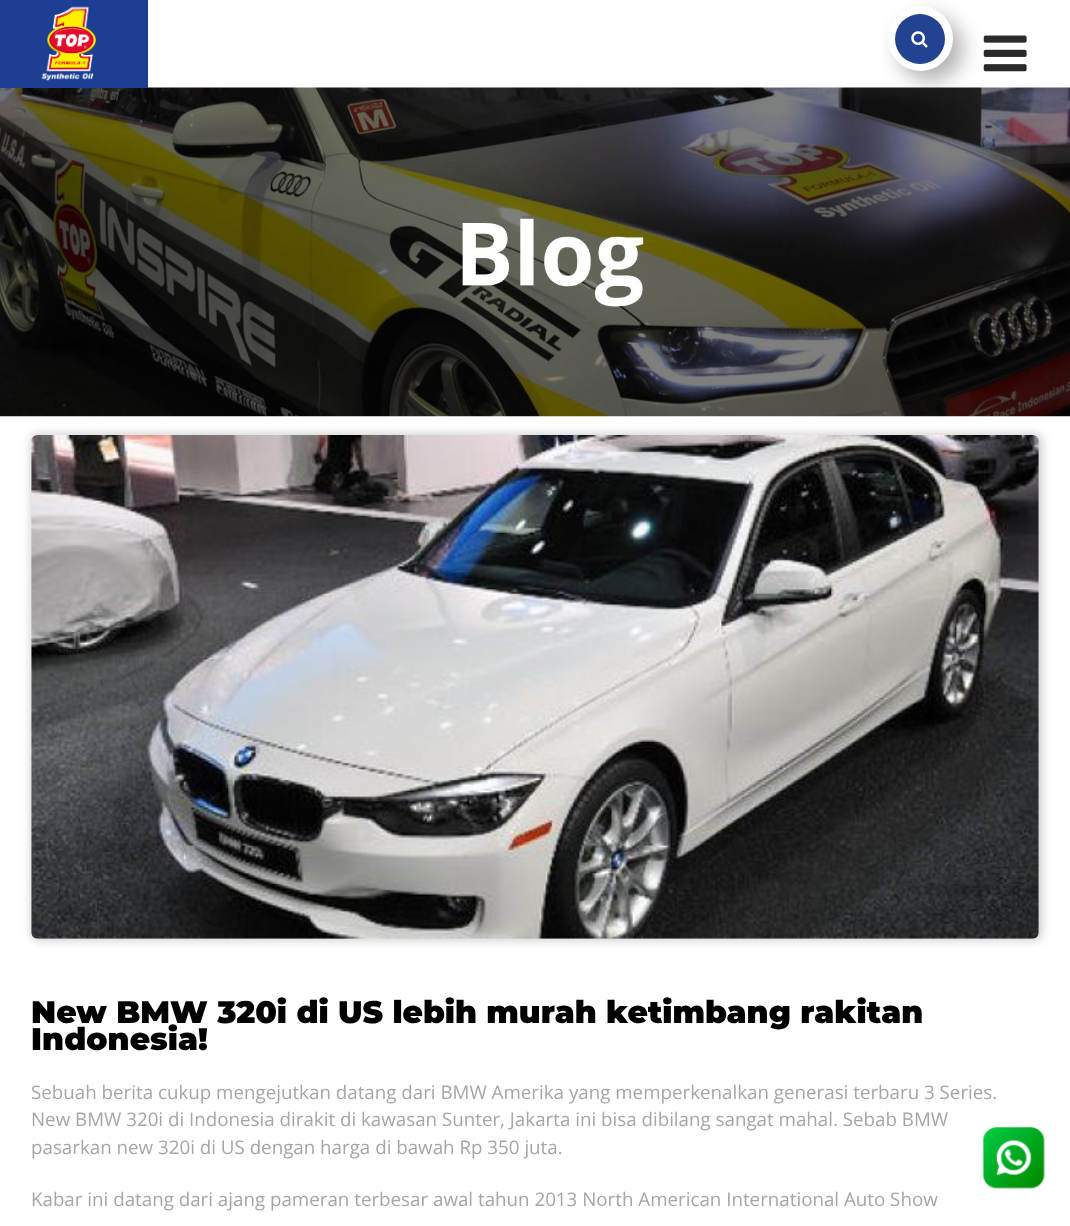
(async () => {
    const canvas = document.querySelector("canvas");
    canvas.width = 1070;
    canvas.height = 1226;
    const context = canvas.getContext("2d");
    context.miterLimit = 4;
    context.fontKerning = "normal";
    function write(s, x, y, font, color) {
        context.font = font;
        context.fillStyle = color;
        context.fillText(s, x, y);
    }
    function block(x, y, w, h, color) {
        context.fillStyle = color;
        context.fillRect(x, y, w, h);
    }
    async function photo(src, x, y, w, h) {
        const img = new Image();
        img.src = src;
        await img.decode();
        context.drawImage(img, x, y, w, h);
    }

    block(0, 0, 1070, 1226, "rgb(255, 255, 255)");
    await photo("media/3.png", 983, 35, 44, 37);
    context.fillStyle = "rgba(0, 0, 0, 0.3)";
    context.filter = "blur(10px)";
    context.beginPath();
    context.roundRect(898, 16, 65, 65, 32.5);
    context.fill();
    context.filter = "none";
    await photo("media/4.png", 0, 87, 1070, 330);
    block(0, 0, 148, 88, "rgb(28, 63, 148)");
    await photo("media/1.png", 41, 6, 56, 75);
    context.fillStyle = "rgb(255, 255, 255)";
    context.beginPath();
    context.arc(920.5, 38.5, 32.5, 0, Math.PI * 2);
    context.fill();
    context.fillStyle = "rgb(34, 66, 146)";
    context.beginPath();
    context.arc(920, 39, 25, 0, Math.PI * 2);
    context.fill();
    await photo("media/2.png", 911, 31, 17, 17);
    context.fillStyle = "rgb(211, 211, 211)";
    context.filter = "blur(4px)";
    context.beginPath();
    context.roundRect(30, 433, 1013, 508, 9);
    context.fill();
    context.filter = "none";
    await photo("media/5.png", 31, 435, 1008, 504);
    write("New BMW 320i di US lebih murah ketimbang rakitan", 31, 1023, "900 31.25px Montserrat", "rgb(0, 0, 0)");
    write("Indonesia!", 31, 1050, "900 31.25px Montserrat", "rgb(0, 0, 0)");
    write("Sebuah berita cukup mengejutkan datang dari BMW Amerika yang memperkenalkan generasi terbaru 3 Series.", 31, 1099, "18.75px Open Sans", "rgb(166, 166, 166)");
    write("New BMW 320i di Indonesia dirakit di kawasan Sunter, Jakarta ini bisa dibilang sangat mahal. Sebab BMW", 31, 1126, "18.75px Open Sans", "rgb(166, 166, 166)");
    write("pasarkan new 320i di US dengan harga di bawah Rp 350 juta.", 31, 1154, "18.75px Open Sans", "rgb(166, 166, 166)");
    write("Kabar ini datang dari ajang pameran terbesar awal tahun 2013 North American International Auto Show", 31, 1206, "18.75px Open Sans", "rgb(166, 166, 166)");
    await photo("media/6.png", 982, 1127, 63, 62);
})();
